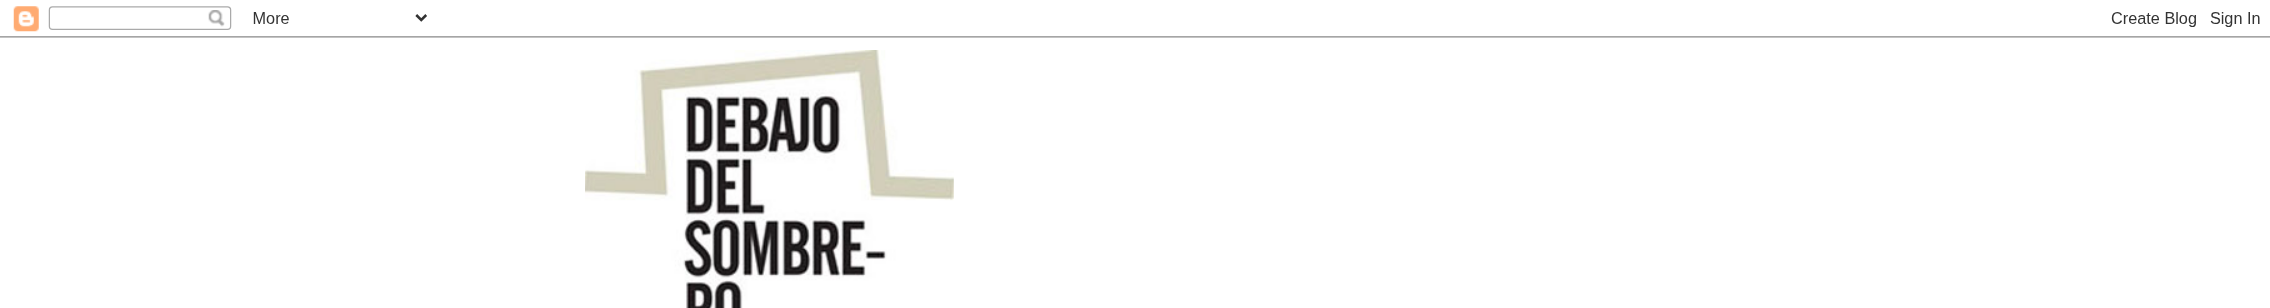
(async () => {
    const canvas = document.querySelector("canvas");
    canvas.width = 2270;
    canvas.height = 308;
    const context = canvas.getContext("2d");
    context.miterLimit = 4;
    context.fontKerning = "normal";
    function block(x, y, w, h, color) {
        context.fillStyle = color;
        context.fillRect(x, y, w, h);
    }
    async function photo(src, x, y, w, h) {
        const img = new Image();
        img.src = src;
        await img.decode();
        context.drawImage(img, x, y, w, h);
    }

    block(0, 0, 2270, 308, "rgb(255, 255, 255)");
    await photo("media/1.png", 0, 6, 2270, 32);
    await photo("media/2.png", 585, 50, 369, 258);
})();
